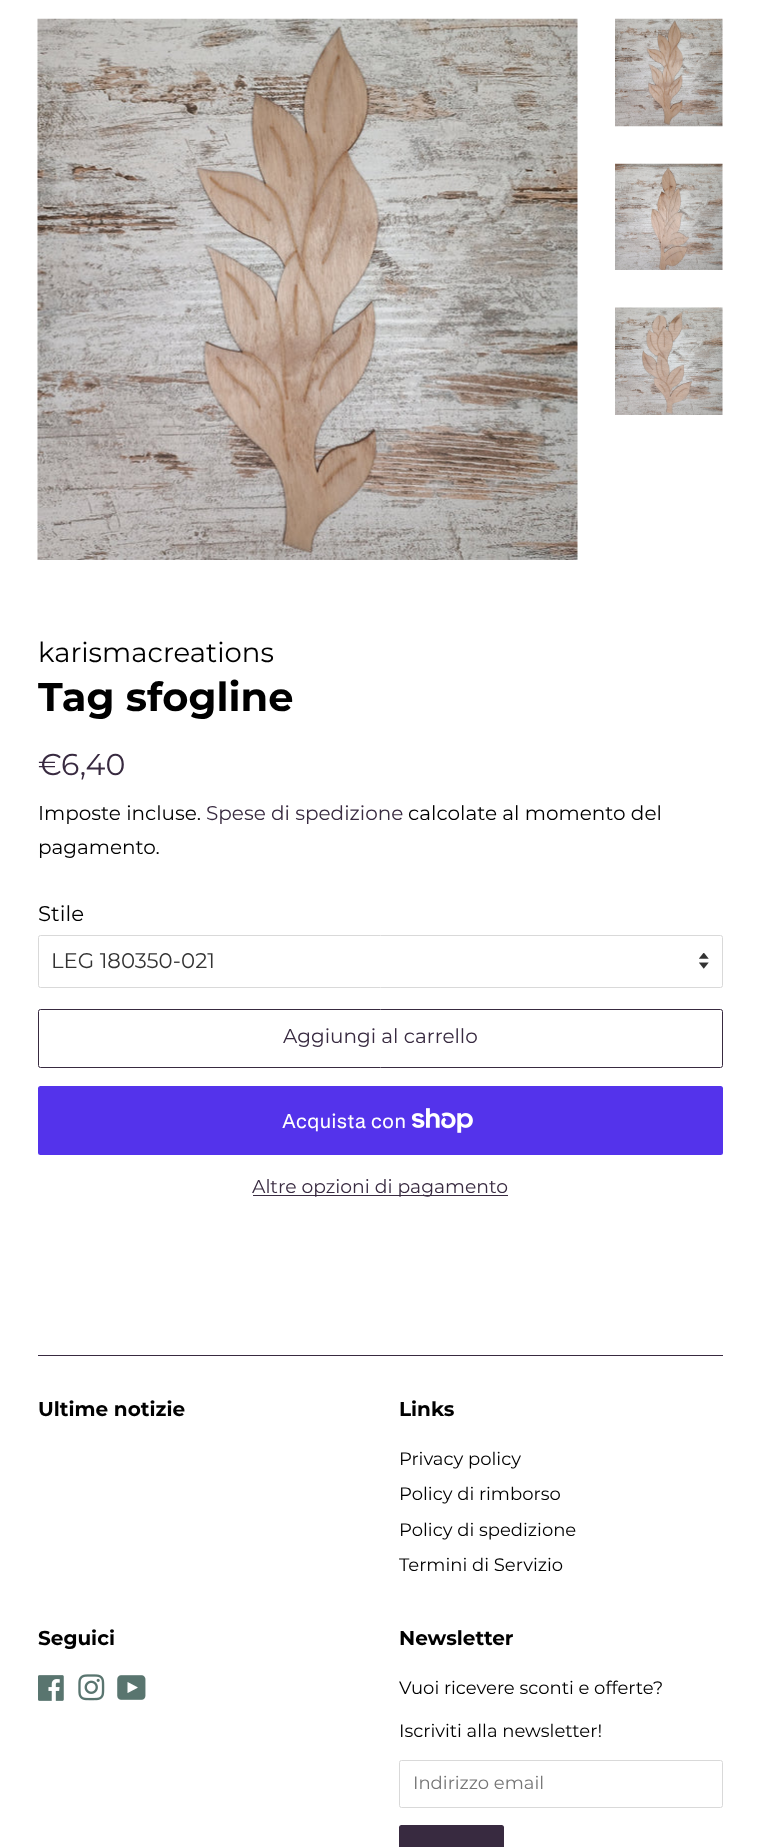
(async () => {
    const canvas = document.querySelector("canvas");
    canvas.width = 760;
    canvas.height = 1847;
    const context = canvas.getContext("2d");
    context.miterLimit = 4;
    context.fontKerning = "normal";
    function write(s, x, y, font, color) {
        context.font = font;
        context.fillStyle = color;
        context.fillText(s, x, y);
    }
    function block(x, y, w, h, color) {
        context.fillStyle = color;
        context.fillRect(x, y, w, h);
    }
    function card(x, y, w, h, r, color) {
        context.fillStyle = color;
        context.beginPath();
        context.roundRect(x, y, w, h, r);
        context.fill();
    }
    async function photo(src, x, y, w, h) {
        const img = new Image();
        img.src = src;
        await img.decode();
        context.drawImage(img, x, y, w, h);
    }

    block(0, 0, 760, 1847, "rgb(255, 255, 255)");
    await photo("media/1.png", 37, 18, 541, 542);
    await photo("media/2.png", 615, 18, 108, 109);
    await photo("media/3.png", 615, 163, 108, 107);
    await photo("media/4.png", 615, 307, 108, 108);
    write("karismacreations", 38, 662, "27.5px Montserrat", "rgb(0, 0, 0)");
    write("Tag sfogline", 38, 711, "bold 40px Montserrat", "rgb(0, 0, 0)");
    write("€6,40", 38, 775, "30px Montserrat", "rgb(56, 42, 64)");
    write("Imposte incluse.", 38, 820, "20px Montserrat", "rgb(0, 0, 0)");
    write("Spese di spedizione", 206, 820, "20px Montserrat", "rgb(56, 42, 64)");
    write("calcolate al momento del", 408, 820, "20px Montserrat", "rgb(0, 0, 0)");
    write("pagamento.", 38, 854, "20px Montserrat", "rgb(0, 0, 0)");
    write("Stile", 38, 921, "21.25px Montserrat", "rgb(0, 0, 0)");
    await photo("media/5.png", 699, 953, 10, 16);
    context.beginPath();
    context.roundRect(38.5, 935.5, 684, 52, 2);
    context.strokeStyle = "rgb(217, 217, 217)";
    context.stroke();
    write("LEG 180350-021", 51, 968, "21.25px Montserrat", "rgb(51, 51, 51)");
    context.beginPath();
    context.roundRect(38.5, 1009.5, 684, 58, 2);
    context.strokeStyle = "rgb(56, 42, 64)";
    context.stroke();
    write("Aggiungi al carrello", 283, 1043, "20px Montserrat", "rgb(56, 42, 64)");
    card(38, 1086, 685, 69, 2.5, "rgb(84, 51, 235)");
    write("Acquista con", 282, 1128, "20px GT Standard", "rgb(255, 255, 255)");
    await photo("media/6.png", 411, 1108, 62, 25);
    block(253, 1195, 255, 1, "rgb(56, 42, 64)");
    write("Altre opzioni di pagamento", 252, 1193, "18.75px Montserrat", "rgb(56, 42, 64)");
    block(38, 1355, 685, 1, "rgb(56, 42, 64)");
    write("Ultime notizie", 38, 1416, "bold 20px Montserrat", "rgb(0, 0, 0)");
    write("Links", 399, 1416, "bold 20px Montserrat", "rgb(0, 0, 0)");
    write("Privacy policy", 399, 1465, "18px Montserrat", "rgb(0, 0, 0)");
    write("Policy di rimborso", 399, 1500, "18px Montserrat", "rgb(0, 0, 0)");
    write("Policy di spedizione", 399, 1536, "18px Montserrat", "rgb(0, 0, 0)");
    write("Termini di Servizio", 399, 1571, "18px Montserrat", "rgb(0, 0, 0)");
    write("Seguici", 38, 1645, "bold 20px Montserrat", "rgb(0, 0, 0)");
    await photo("media/7.png", 38, 1675, 26, 26);
    await photo("media/8.png", 78, 1674, 27, 27);
    await photo("media/9.png", 117, 1675, 29, 25);
    write("Newsletter", 399, 1645, "bold 20px Montserrat", "rgb(0, 0, 0)");
    write("Vuoi ricevere sconti e offerte?", 399, 1694, "18px Montserrat", "rgb(0, 0, 0)");
    write("Iscriviti alla newsletter!", 399, 1737, "18px Montserrat", "rgb(0, 0, 0)");
    context.beginPath();
    context.roundRect(399.5, 1760.5, 323, 47, 2);
    context.strokeStyle = "rgb(217, 217, 217)";
    context.stroke();
    write("Indirizzo email", 413, 1789, "18px Montserrat", "rgb(117, 117, 117)");
    card(399, 1825, 105, 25, 2.5, "rgb(56, 42, 64)");
})();
